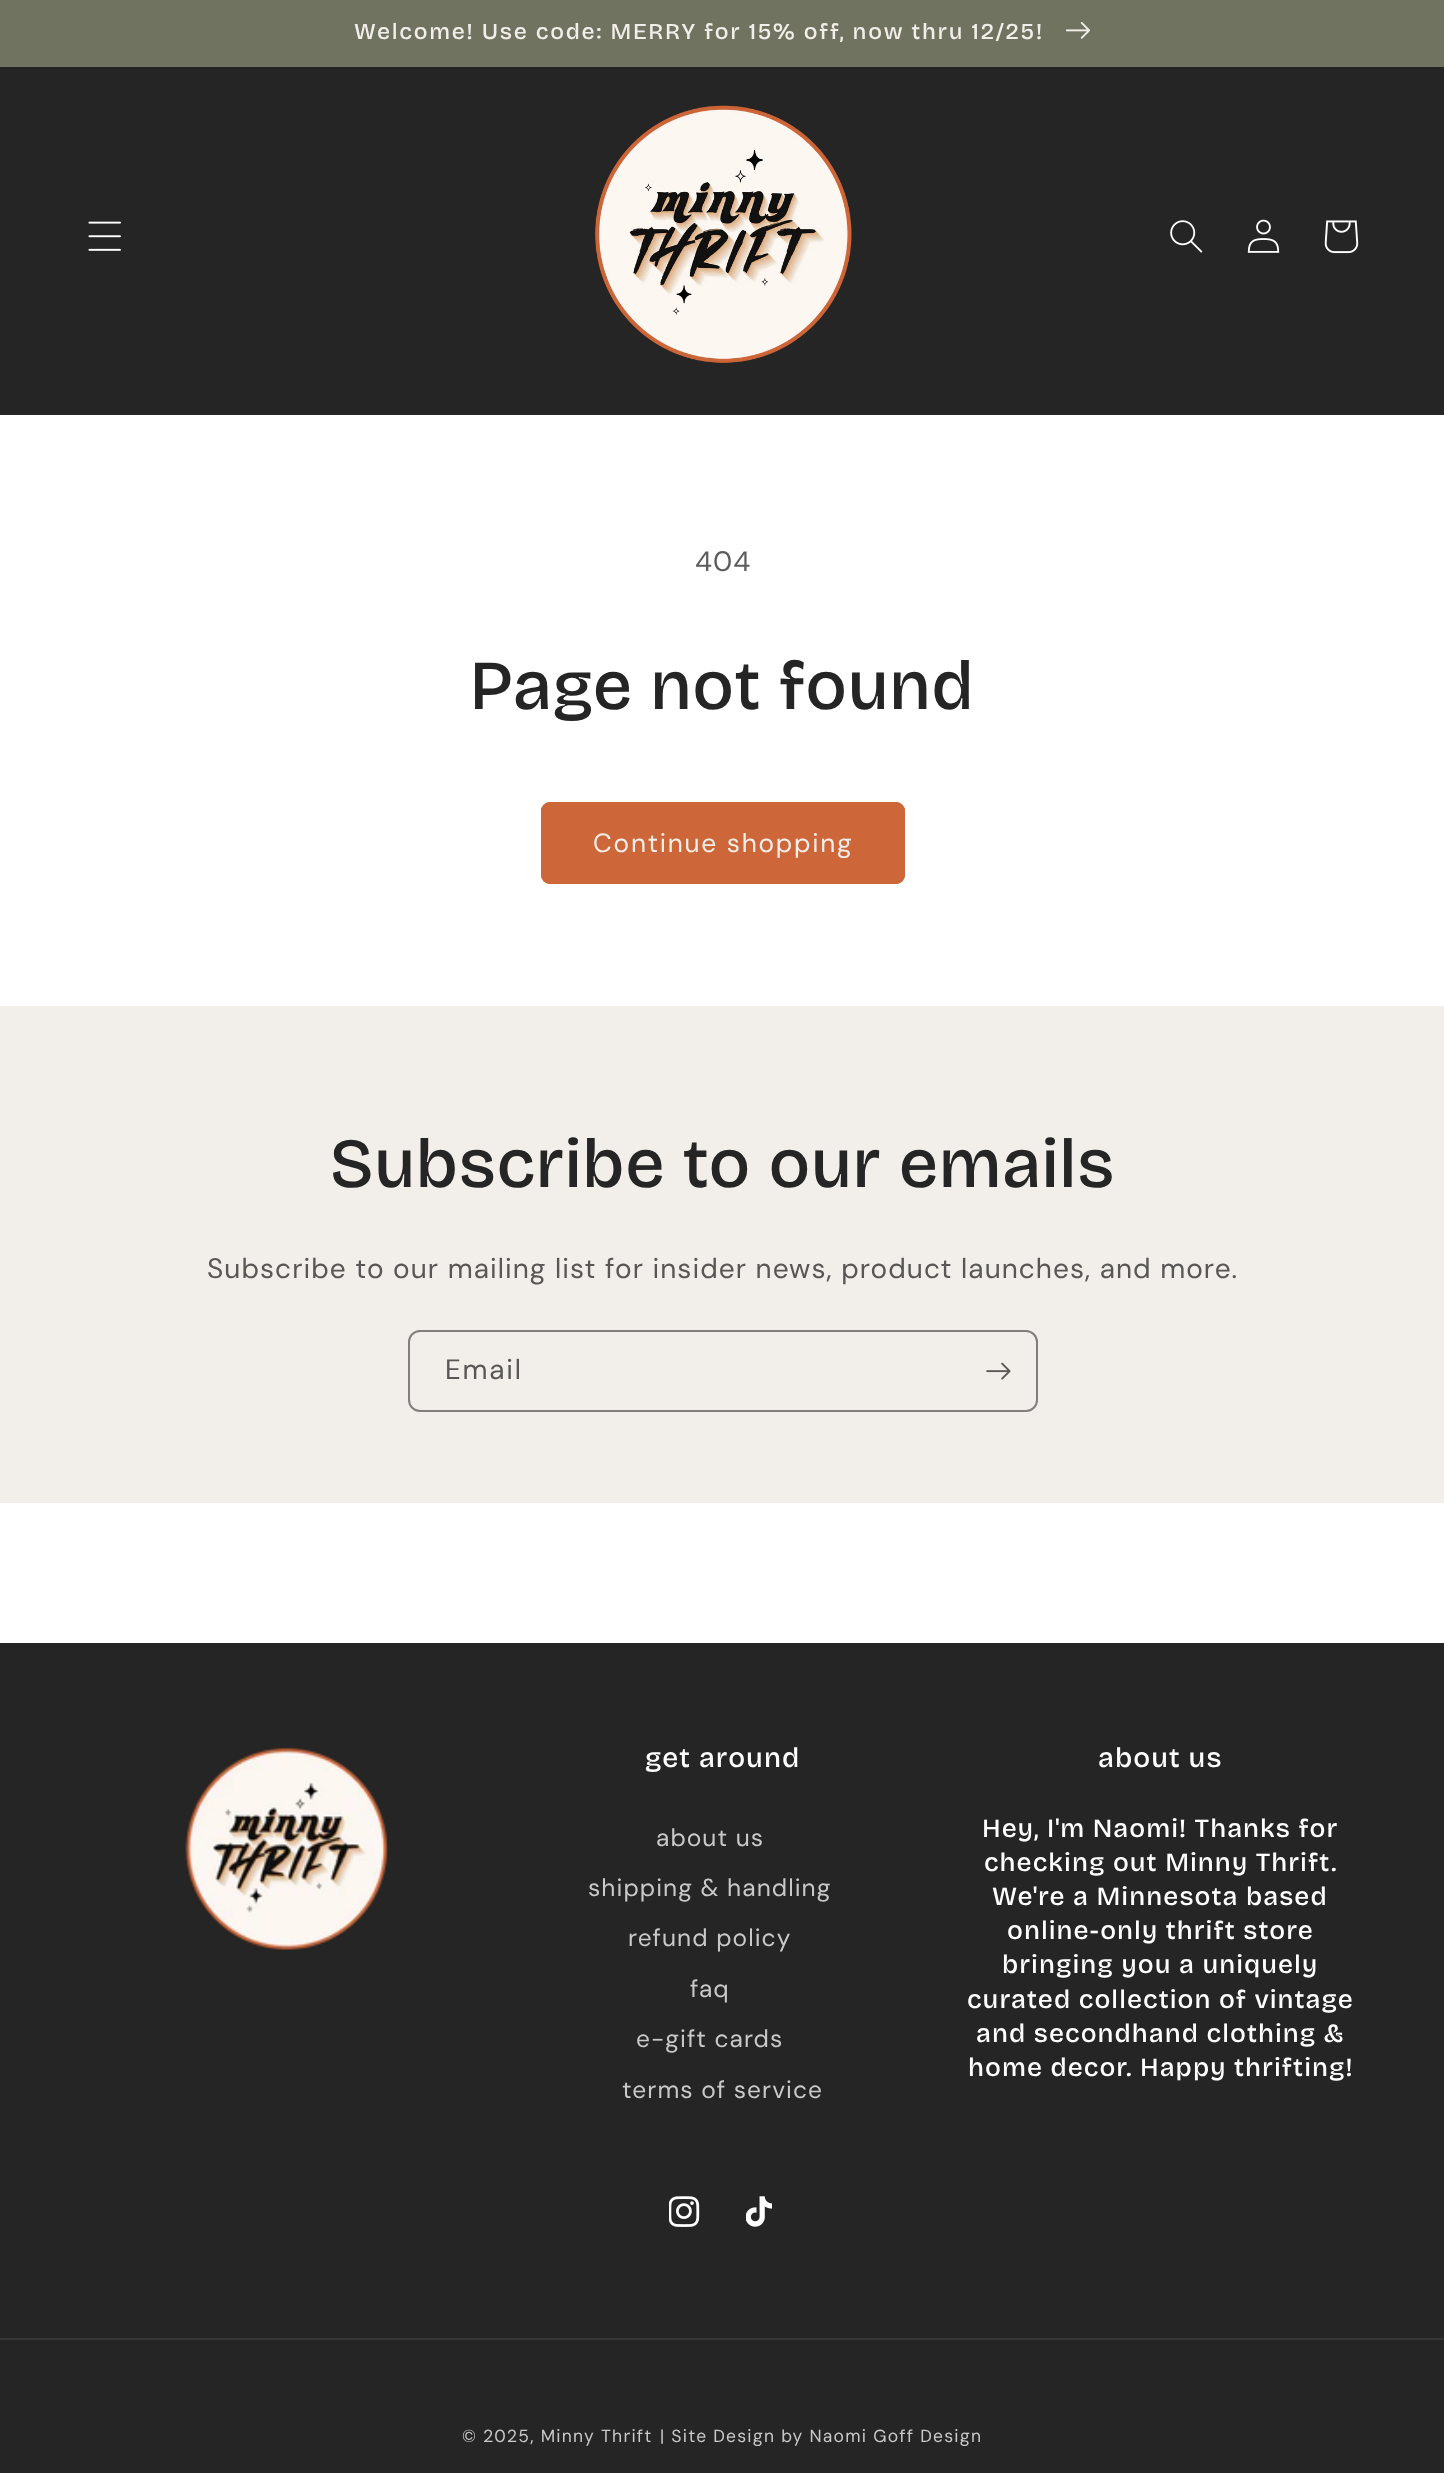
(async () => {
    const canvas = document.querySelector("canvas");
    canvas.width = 1444;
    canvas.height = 2473;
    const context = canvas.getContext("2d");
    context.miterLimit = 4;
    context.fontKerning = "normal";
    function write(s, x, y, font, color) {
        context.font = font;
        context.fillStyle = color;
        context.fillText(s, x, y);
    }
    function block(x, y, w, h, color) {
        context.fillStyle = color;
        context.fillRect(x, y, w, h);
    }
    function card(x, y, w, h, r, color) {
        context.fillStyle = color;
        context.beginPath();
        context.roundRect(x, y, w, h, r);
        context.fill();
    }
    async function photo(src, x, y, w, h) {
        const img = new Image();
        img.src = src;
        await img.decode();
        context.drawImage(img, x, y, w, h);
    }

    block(0, 0, 1444, 2473, "rgb(255, 255, 255)");
    block(0, 65, 1444, 2, "rgb(114, 117, 99)");
    block(0, 0, 1444, 65, "rgb(111, 115, 96)");
    context.letterSpacing = "1.75px";
    write("Welcome! Use code: MERRY for 15% off, now thru 12/25!", 354, 39, "500 22.75px 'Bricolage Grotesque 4'", "rgb(242, 238, 233)");
    await photo("media/1.png", 1066, 22, 25, 17);
    block(0, 67, 1444, 348, "rgb(37, 37, 37)");
    await photo("media/2.png", 88, 221, 33, 30);
    await photo("media/3.png", 595, 105, 257, 258);
    await photo("media/4.png", 1170, 220, 33, 33);
    await photo("media/5.png", 1247, 219, 33, 34);
    await photo("media/6.png", 1324, 220, 35, 34);
    context.letterSpacing = "1.05px";
    write("404", 695, 571, "28px DM Sans", "rgb(92, 92, 92)");
    write("Page not found", 470, 709, "500 70px Bricolage Grotesque", "rgb(37, 37, 37)");
    card(541, 802, 364, 82, 9, "rgb(205, 102, 56)");
    context.beginPath();
    context.roundRect(542, 803, 362, 80, 8);
    context.strokeStyle = "rgb(205, 102, 56)";
    context.lineWidth = 2;
    context.stroke();
    context.letterSpacing = "1.75px";
    write("Continue shopping", 593, 852, "26.25px 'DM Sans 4'", "rgb(242, 238, 233)");
    block(0, 1006, 1444, 497, "rgb(242, 238, 233)");
    context.letterSpacing = "1.05px";
    write("Subscribe to our emails", 330, 1187, "500 70px Bricolage Grotesque", "rgb(37, 37, 37)");
    write("Subscribe to our mailing list for insider news, product launches, and more.", 207, 1278, "28px DM Sans", "rgb(88, 87, 86)");
    context.beginPath();
    context.roundRect(409, 1331, 628, 80, 11);
    context.strokeStyle = "rgb(129, 127, 125)";
    context.stroke();
    context.letterSpacing = "1.75px";
    write("Email", 445, 1379, "28px DM Sans", "rgb(88, 87, 86)");
    await photo("media/7.png", 986, 1362, 25, 18);
    block(0, 1643, 1444, 830, "rgb(37, 37, 37)");
    await photo("media/8.png", 185, 1747, 204, 203);
    context.letterSpacing = "1.05px";
    write("get around", 645, 1767, "500 28px 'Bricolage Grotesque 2'", "rgb(255, 255, 255)");
    write("about us", 656, 1846, "24.5px 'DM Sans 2'", "rgb(201, 201, 201)");
    write("shipping & handling", 588, 1896, "24.5px 'DM Sans 2'", "rgb(201, 201, 201)");
    write("refund policy", 628, 1946, "24.5px 'DM Sans 2'", "rgb(201, 201, 201)");
    write("faq", 690, 1997, "24.5px 'DM Sans 2'", "rgb(201, 201, 201)");
    write("e-gift cards", 636, 2047, "24.5px 'DM Sans 2'", "rgb(201, 201, 201)");
    write("terms of service", 622, 2098, "24.5px 'DM Sans 2'", "rgb(201, 201, 201)");
    write("about us", 1098, 1767, "500 28px 'Bricolage Grotesque 2'", "rgb(255, 255, 255)");
    write("Hey, I'm Naomi! Thanks for", 982, 1837, "500 26.25px 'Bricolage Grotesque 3'", "rgb(255, 255, 255)");
    write("checking out Minny Thrift.", 984, 1871, "500 26.25px 'Bricolage Grotesque 3'", "rgb(255, 255, 255)");
    write("We're a Minnesota based", 992, 1905, "500 26.25px 'Bricolage Grotesque 3'", "rgb(255, 255, 255)");
    write("online-only thrift store", 1007, 1939, "500 26.25px 'Bricolage Grotesque 3'", "rgb(255, 255, 255)");
    write("bringing you a uniquely", 1002, 1973, "500 26.25px 'Bricolage Grotesque 3'", "rgb(255, 255, 255)");
    write("curated collection of vintage", 967, 2008, "500 26.25px 'Bricolage Grotesque 3'", "rgb(255, 255, 255)");
    write("and secondhand clothing &", 976, 2042, "500 26.25px 'Bricolage Grotesque 3'", "rgb(255, 255, 255)");
    write("home decor. Happy thrifting!", 968, 2076, "500 26.25px 'Bricolage Grotesque 3'", "rgb(255, 255, 255)");
    await photo("media/9.png", 669, 2196, 31, 31);
    await photo("media/10.png", 746, 2196, 26, 31);
    block(0, 2338, 1444, 2, "rgb(54, 54, 54)");
    context.letterSpacing = "1.2px";
    write("© 2025, Minny Thrift", 462, 2442, "17.5px 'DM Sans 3'", "rgb(201, 201, 201)");
    write("| Site Design by Naomi Goff Design", 660, 2442, "17.5px 'DM Sans 3'", "rgb(201, 201, 201)");
})();
